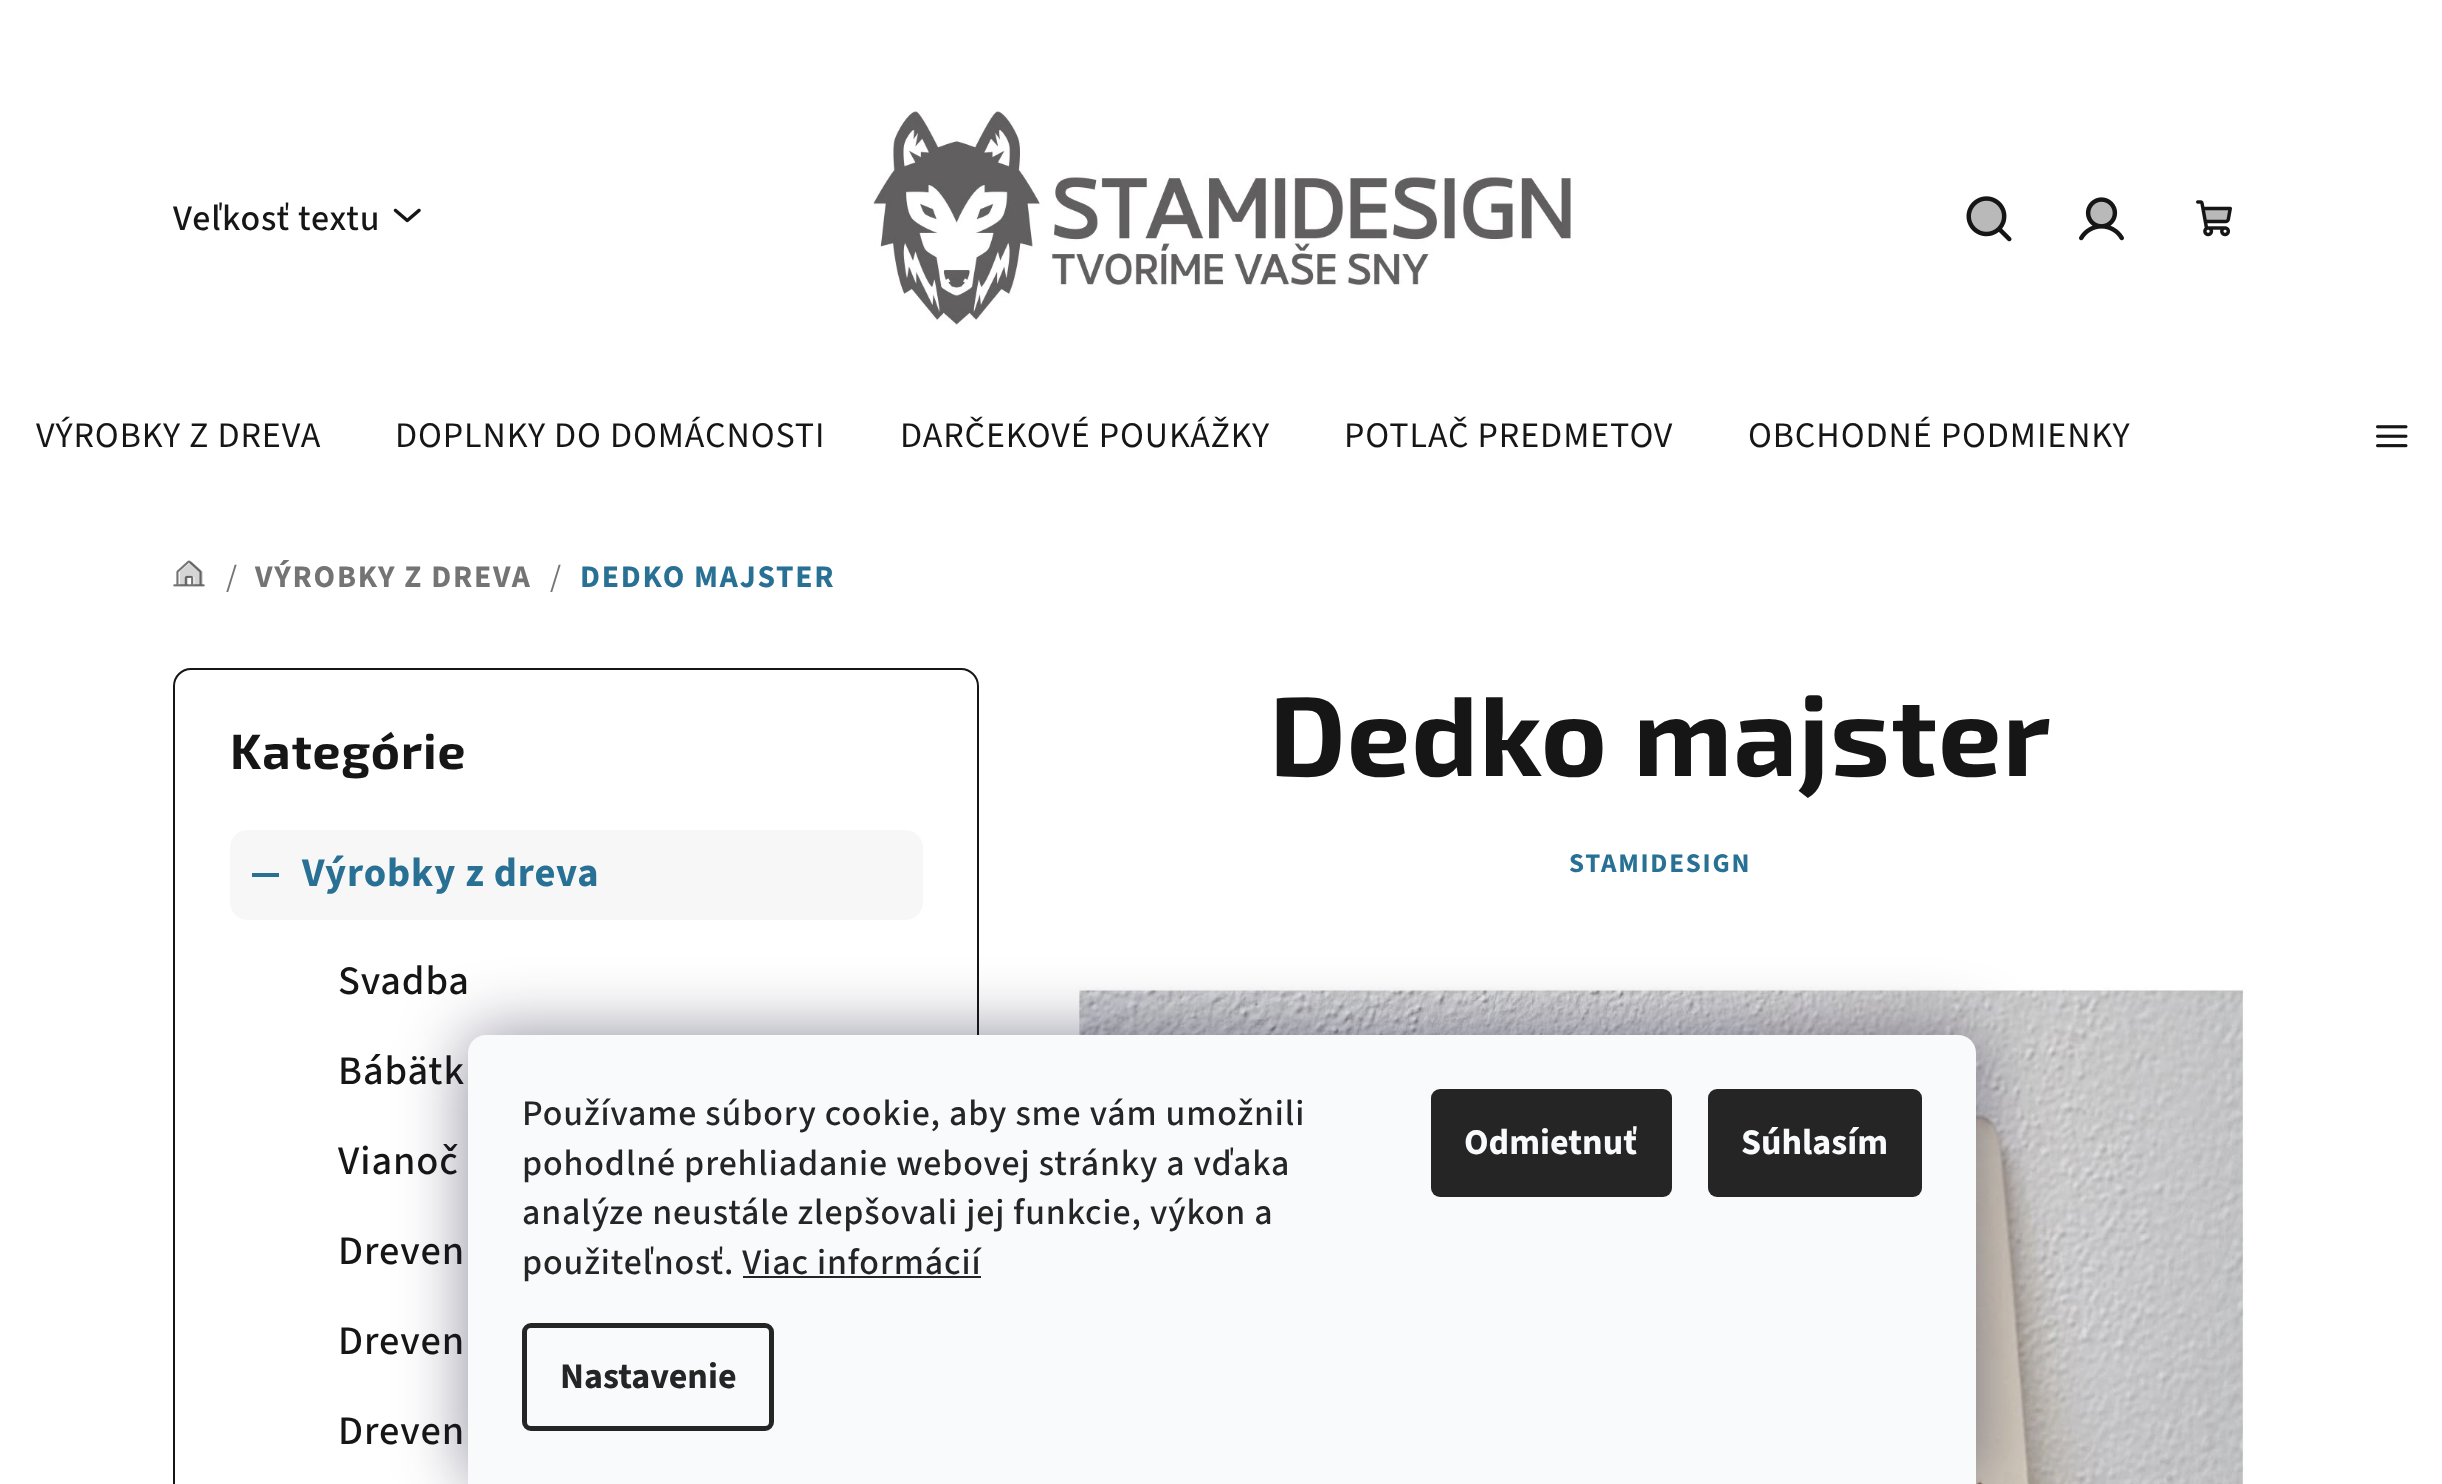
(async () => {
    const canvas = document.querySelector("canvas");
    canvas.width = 2442;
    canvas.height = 1484;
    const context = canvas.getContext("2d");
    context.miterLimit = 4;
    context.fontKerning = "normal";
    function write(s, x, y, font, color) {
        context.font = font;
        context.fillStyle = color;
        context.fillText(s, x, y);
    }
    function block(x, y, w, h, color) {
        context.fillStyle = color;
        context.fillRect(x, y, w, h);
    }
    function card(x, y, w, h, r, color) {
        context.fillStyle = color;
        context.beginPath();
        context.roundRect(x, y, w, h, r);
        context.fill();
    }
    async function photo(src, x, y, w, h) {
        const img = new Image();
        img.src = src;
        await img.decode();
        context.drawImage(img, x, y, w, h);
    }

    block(0, 0, 2442, 1484, "rgb(255, 255, 255)");
    context.letterSpacing = "0.9px";
    write("Veľkosť textu", 173, 230, "500 36px 'Source Sans 3'", "rgb(22, 22, 22)");
    await photo("media/1.png", 393, 208, 28, 15);
    await photo("media/2.png", 873, 111, 698, 216);
    await photo("media/3.png", 1966, 196, 46, 46);
    context.fillStyle = "rgba(22, 22, 22, 0.3)";
    context.beginPath();
    context.moveTo(1986.5, 234);
    context.bezierCurveTo(2003.5, 234, 2010.5, 212, 1997, 202);
    context.bezierCurveTo(1994, 200, 1990.5, 198.5, 1986.5, 198.5);
    context.bezierCurveTo(1982.5, 198.5, 1979, 200, 1976, 202);
    context.bezierCurveTo(1962.5, 212, 1969.5, 234, 1986.5, 234);
    context.closePath();
    context.fill();
    await photo("media/4.png", 2079, 197, 45, 44);
    context.beginPath();
    context.moveTo(2101.5, 226.5);
    context.bezierCurveTo(2119, 226.5, 2119, 199.5, 2101.5, 199.5);
    context.bezierCurveTo(2084, 199.5, 2084, 226.5, 2101.5, 226.5);
    context.closePath();
    context.fill();
    await photo("media/5.png", 2196, 200, 36, 37);
    context.beginPath();
    context.moveTo(2205.5, 221.5);
    context.lineTo(2222.5, 221.5);
    context.bezierCurveTo(2227, 221.5, 2228, 222, 2228.5, 217.5);
    context.lineTo(2230.5, 208.5);
    context.lineTo(2203, 208.5);
    context.closePath();
    context.fill();
    write("VÝROBKY Z DREVA", 36, 447, "36px 'Source Sans 3'", "rgb(22, 22, 22)");
    write("DOPLNKY DO DOMÁCNOSTI", 395, 447, "36px 'Source Sans 3'", "rgb(22, 22, 22)");
    write("DARČEKOVÉ POUKÁŽKY", 900, 447, "36px 'Source Sans 3'", "rgb(22, 22, 22)");
    write("POTLAČ PREDMETOV", 1344, 447, "36px 'Source Sans 3'", "rgb(22, 22, 22)");
    write("OBCHODNÉ PODMIENKY", 1748, 447, "36px 'Source Sans 3'", "rgb(22, 22, 22)");
    await photo("media/6.png", 2376, 425, 32, 23);
    await photo("media/7.png", 173, 560, 32, 27);
    await photo("media/8.png", 179, 561, 24, 25);
    context.letterSpacing = "1.75px";
    write("/", 226, 587, "31.5px 'Source Sans 3'", "rgb(116, 116, 116)");
    write("VÝROBKY Z DREVA", 255, 587, "bold 31.5px 'Source Sans 3'", "rgb(116, 116, 116)");
    write("/", 550, 587, "31.5px 'Source Sans 3'", "rgb(116, 116, 116)");
    write("DEDKO MAJSTER", 580, 587, "bold 31.5px 'Source Sans 3'", "rgb(40, 112, 148)");
    context.beginPath();
    context.roundRect(174, 669, 804, 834, 17);
    context.strokeStyle = "rgb(22, 22, 22)";
    context.lineWidth = 2;
    context.stroke();
    context.letterSpacing = "0.9px";
    write("Kategórie", 230, 769, "bold 49.5px 'Exo 2'", "rgb(22, 22, 22)");
    card(230, 830, 693, 90, 18, "rgb(247, 247, 247)");
    block(252, 873, 27, 4, "rgb(40, 112, 148)");
    write("Výrobky z dreva", 302, 886, "bold 40.5px 'Source Sans 3'", "rgb(40, 112, 148)");
    write("Svadba", 338, 994, "500 40.5px 'Source Sans 3'", "rgb(22, 22, 22)");
    write("Bábätk", 338, 1084, "500 40.5px 'Source Sans 3'", "rgb(22, 22, 22)");
    write("Vianoč", 338, 1174, "500 40.5px 'Source Sans 3'", "rgb(22, 22, 22)");
    write("Dreven", 338, 1264, "500 40.5px 'Source Sans 3'", "rgb(22, 22, 22)");
    write("Dreven", 338, 1354, "500 40.5px 'Source Sans 3'", "rgb(22, 22, 22)");
    write("Dreven", 338, 1444, "500 40.5px 'Source Sans 3'", "rgb(22, 22, 22)");
    write("Dedko majster", 1269, 776, "bold 112.5px 'Exo 2'", "rgb(22, 22, 22)");
    context.letterSpacing = "1.75px";
    write("STAMIDESIGN", 1569, 872, "bold 27px 'Source Sans 3'", "rgb(40, 112, 148)");
    await photo("media/9.png", 1079, 987, 1167, 497);
    context.fillStyle = "rgba(27, 25, 57, 0.5)";
    context.filter = "blur(34px)";
    context.beginPath();
    context.roundRect(468, 1035, 1508, 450, 18);
    context.fill();
    context.filter = "none";
    context.fillStyle = "rgb(248, 250, 251)";
    context.beginPath();
    context.moveTo(486, 1035);
    context.lineTo(1958, 1035);
    context.bezierCurveTo(1968, 1035, 1976, 1043, 1976, 1053);
    context.lineTo(1976, 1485);
    context.lineTo(468, 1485);
    context.lineTo(468, 1053);
    context.bezierCurveTo(468, 1043, 476, 1035, 486, 1035);
    context.closePath();
    context.fill();
    context.letterSpacing = "0.9px";
    write("Používame súbory cookie, aby sme vám umožnili", 522, 1125, "500 36px 'Source Sans 3'", "rgb(37, 37, 37)");
    write("pohodlné prehliadanie webovej stránky a vďaka", 522, 1175, "500 36px 'Source Sans 3'", "rgb(37, 37, 37)");
    write("analýze neustále zlepšovali jej funkcie, výkon a", 522, 1224, "500 36px 'Source Sans 3'", "rgb(37, 37, 37)");
    write("použiteľnosť. Viac informácií", 522, 1274, "500 36px 'Source Sans 3'", "rgb(37, 37, 37)");
    block(743, 1276, 238, 2, "rgb(37, 37, 37)");
    context.beginPath();
    context.roundRect(524.5, 1325.5, 247, 103, 6.5);
    context.strokeStyle = "rgb(37, 37, 37)";
    context.lineWidth = 5;
    context.stroke();
    context.letterSpacing = "0px";
    write("Nastavenie", 560, 1388, "bold 36px 'Source Sans 3'", "rgb(37, 37, 37)");
    card(1431, 1089, 241, 108, 9, "rgb(37, 37, 37)");
    write("Odmietnuť", 1464, 1154, "bold 36px 'Source Sans 3'", "rgb(248, 250, 251)");
    card(1708, 1089, 214, 108, 9, "rgb(37, 37, 37)");
    write("Súhlasím", 1741, 1154, "bold 36px 'Source Sans 3'", "rgb(248, 250, 251)");
})();
